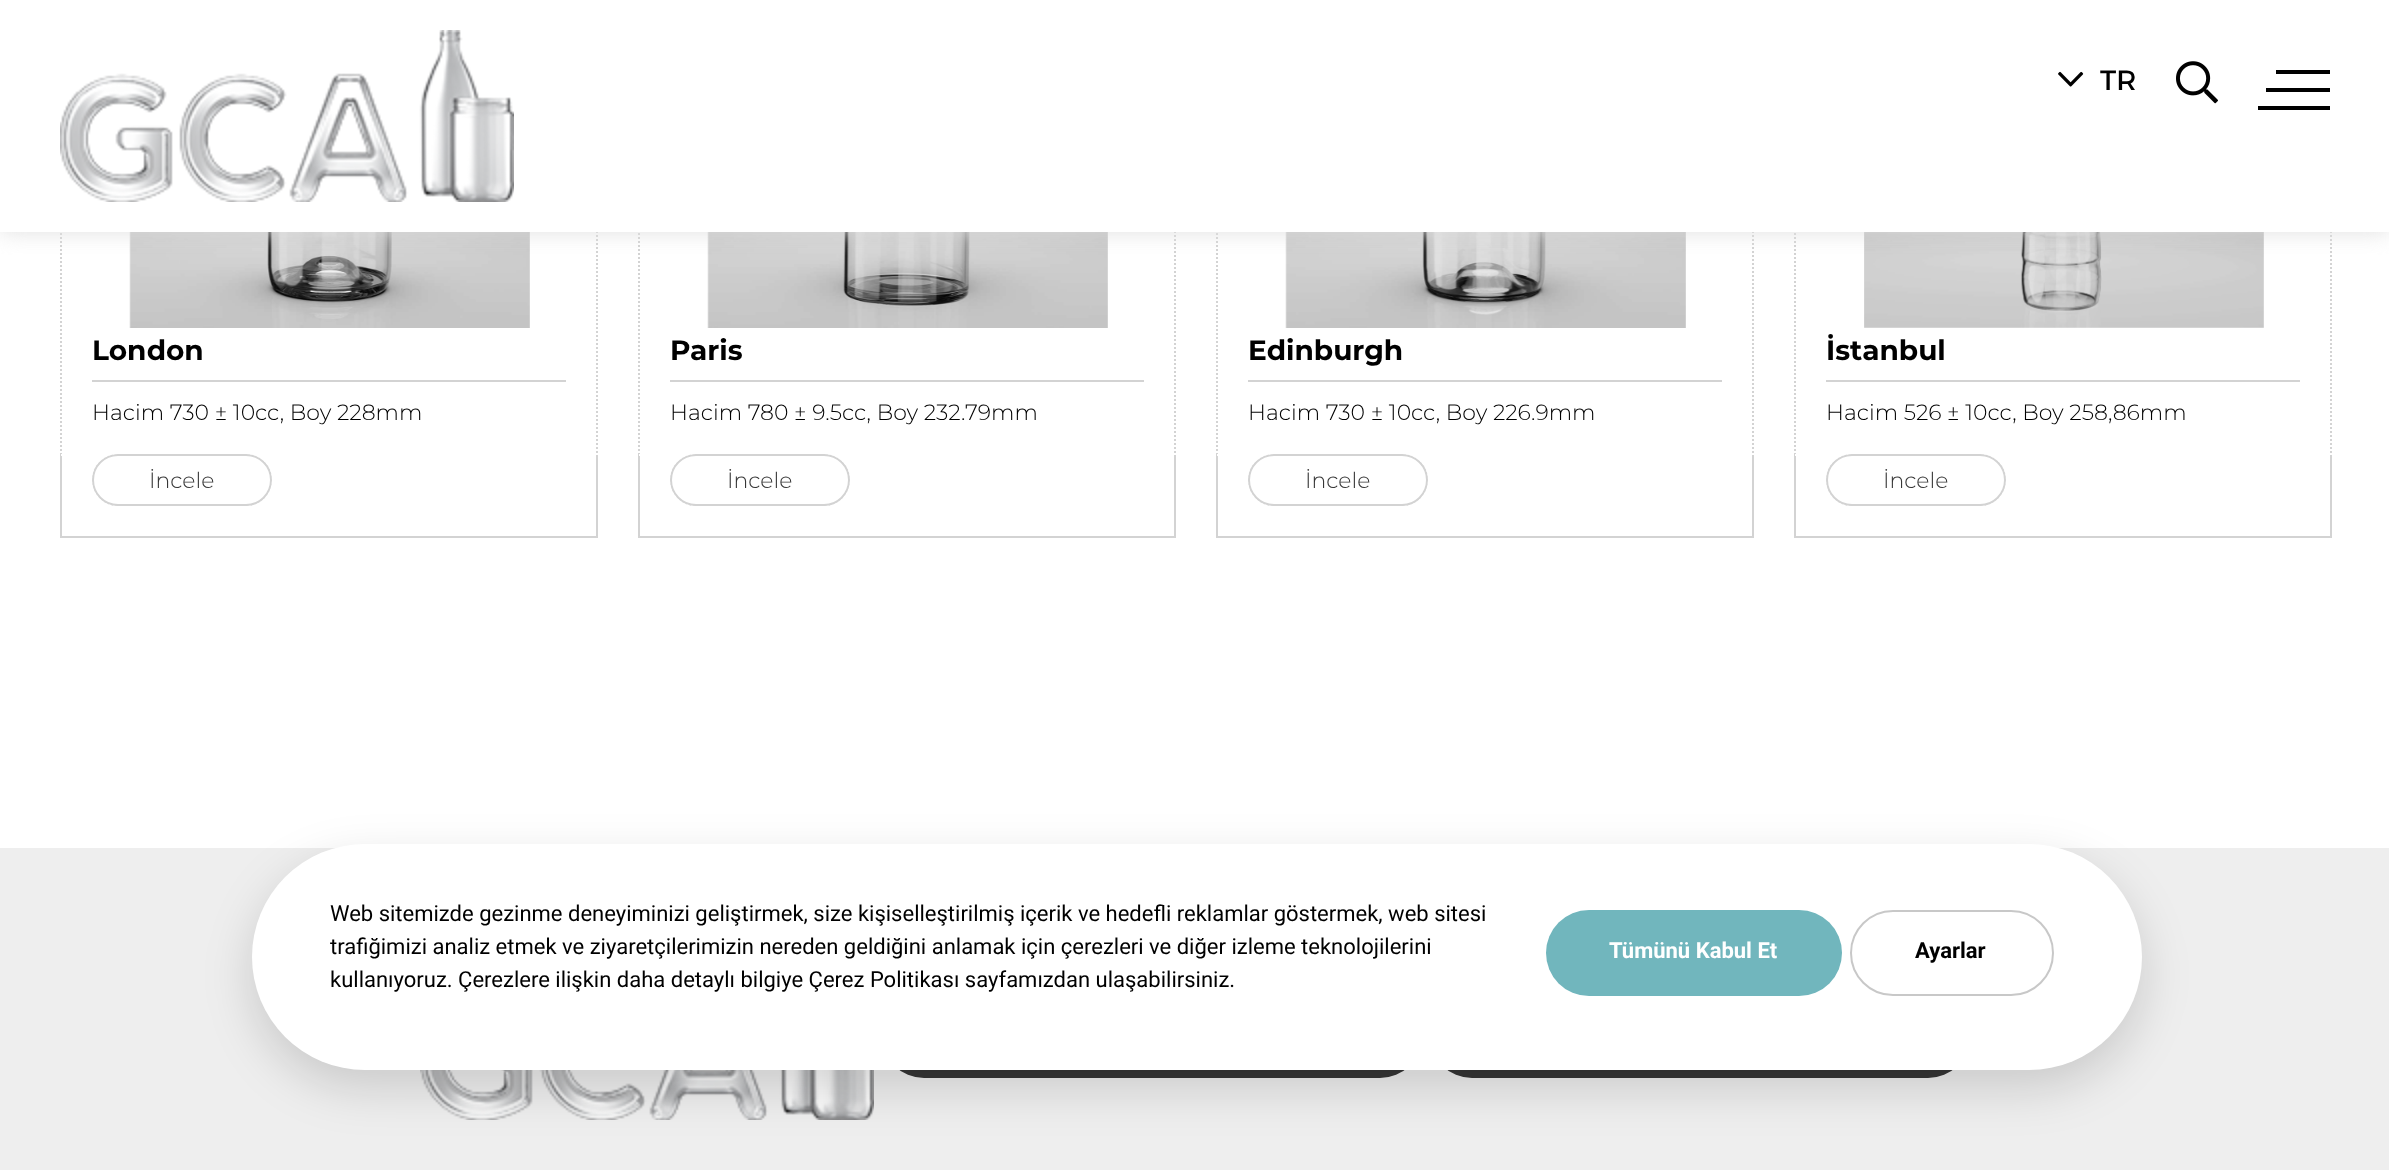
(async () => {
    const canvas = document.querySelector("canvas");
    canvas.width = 2389;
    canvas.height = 1170;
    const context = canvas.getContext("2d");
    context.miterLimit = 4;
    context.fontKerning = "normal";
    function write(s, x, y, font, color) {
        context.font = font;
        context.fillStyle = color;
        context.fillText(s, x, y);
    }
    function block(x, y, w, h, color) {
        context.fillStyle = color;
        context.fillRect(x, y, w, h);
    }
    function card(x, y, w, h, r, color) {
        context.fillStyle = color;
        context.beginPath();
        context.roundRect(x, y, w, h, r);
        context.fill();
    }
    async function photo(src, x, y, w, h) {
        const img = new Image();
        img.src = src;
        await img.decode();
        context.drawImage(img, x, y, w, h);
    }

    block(0, 0, 2389, 1170, "rgb(255, 255, 255)");
    context.strokeStyle = "rgb(211, 211, 211)";
    context.lineWidth = 2;
    context.strokeRect(61, -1, 536, 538);
    block(92, 380, 474, 2, "rgb(211, 211, 211)");
    write("London", 92, 360, "bold 28px Montserrat", "rgb(0, 0, 0)");
    write("Hacim 730 ± 10cc, Boy 228mm", 92, 420, "300 22px Montserrat", "rgb(0, 0, 0)");
    context.beginPath();
    context.moveTo(61, -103);
    context.lineTo(597, -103);
    context.lineTo(597, 455);
    context.lineTo(61, 455);
    context.closePath();
    context.strokeStyle = "rgb(255, 255, 255)";
    context.setLineDash([2, 2]);
    context.stroke();
    context.strokeStyle = "rgb(211, 211, 211)";
    context.setLineDash([]);
    context.strokeRect(639, -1, 536, 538);
    block(670, 380, 474, 2, "rgb(211, 211, 211)");
    write("Paris", 670, 360, "bold 28px Montserrat", "rgb(0, 0, 0)");
    write("Hacim 780 ± 9.5cc, Boy 232.79mm", 670, 420, "300 22px Montserrat", "rgb(0, 0, 0)");
    context.beginPath();
    context.moveTo(639, -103);
    context.lineTo(1175, -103);
    context.lineTo(1175, 455);
    context.lineTo(639, 455);
    context.closePath();
    context.strokeStyle = "rgb(255, 255, 255)";
    context.setLineDash([2, 2]);
    context.stroke();
    context.strokeStyle = "rgb(211, 211, 211)";
    context.setLineDash([]);
    context.strokeRect(1217, -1, 536, 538);
    block(1248, 380, 474, 2, "rgb(211, 211, 211)");
    write("Edinburgh", 1248, 360, "bold 28px Montserrat", "rgb(0, 0, 0)");
    write("Hacim 730 ± 10cc, Boy 226.9mm", 1248, 420, "300 22px Montserrat", "rgb(0, 0, 0)");
    context.beginPath();
    context.moveTo(1217, -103);
    context.lineTo(1753, -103);
    context.lineTo(1753, 455);
    context.lineTo(1217, 455);
    context.closePath();
    context.strokeStyle = "rgb(255, 255, 255)";
    context.setLineDash([2, 2]);
    context.stroke();
    context.strokeStyle = "rgb(211, 211, 211)";
    context.setLineDash([]);
    context.strokeRect(1795, -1, 536, 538);
    block(1826, 380, 474, 2, "rgb(211, 211, 211)");
    write("İstanbul", 1826, 360, "bold 28px Montserrat", "rgb(0, 0, 0)");
    write("Hacim 526 ± 10cc, Boy 258,86mm", 1826, 420, "300 22px Montserrat", "rgb(0, 0, 0)");
    context.beginPath();
    context.moveTo(1795, -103);
    context.lineTo(2331, -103);
    context.lineTo(2331, 455);
    context.lineTo(1795, 455);
    context.closePath();
    context.strokeStyle = "rgb(255, 255, 255)";
    context.setLineDash([2, 2]);
    context.stroke();
    block(60, 0, 2272, 232, "rgb(255, 255, 255)");
    await photo("media/4.png", 129, 232, 401, 96);
    await photo("media/5.png", 707, 232, 401, 96);
    await photo("media/6.png", 1285, 232, 401, 96);
    await photo("media/7.png", 1864, 232, 400, 96);
    context.save();
    context.beginPath();
    context.rect(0, 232, 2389, 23);
    context.clip();
    context.fillStyle = "rgb(224, 224, 224)";
    context.filter = "blur(11px)";
    context.beginPath();
    context.rect(0, 0, 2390, 232);
    context.fill();
    context.filter = "none";
    context.restore();
    await photo("media/1.png", 60, 30, 454, 172);
    await photo("media/2.png", 2058, 71, 26, 16);
    write("TR", 2100, 90, "28px Montserrat", "rgb(0, 0, 0)");
    await photo("media/3.png", 2176, 61, 42, 43);
    block(2276, 70, 54, 4, "rgb(0, 0, 0)");
    block(2266, 88, 64, 4, "rgb(0, 0, 0)");
    block(2258, 106, 72, 4, "rgb(0, 0, 0)");
    context.beginPath();
    context.roundRect(93, 455, 178, 50, 25);
    context.strokeStyle = "rgb(211, 211, 211)";
    context.setLineDash([]);
    context.stroke();
    write("İncele", 149, 488, "300 22px Montserrat", "rgb(54, 54, 54)");
    context.beginPath();
    context.moveTo(118, 453);
    context.lineTo(246, 453);
    context.bezierCurveTo(261, 453, 273, 465, 273, 480);
    context.bezierCurveTo(273, 495, 261, 507, 246, 507);
    context.lineTo(118, 507);
    context.bezierCurveTo(103, 507, 91, 495, 91, 480);
    context.bezierCurveTo(91, 465, 103, 453, 118, 453);
    context.closePath();
    context.strokeStyle = "rgb(255, 255, 255)";
    context.setLineDash([2, 2]);
    context.stroke();
    context.beginPath();
    context.roundRect(671, 455, 178, 50, 25);
    context.strokeStyle = "rgb(211, 211, 211)";
    context.setLineDash([]);
    context.stroke();
    write("İncele", 727, 488, "300 22px Montserrat", "rgb(54, 54, 54)");
    context.beginPath();
    context.moveTo(696, 453);
    context.lineTo(824, 453);
    context.bezierCurveTo(839, 453, 851, 465, 851, 480);
    context.bezierCurveTo(851, 495, 839, 507, 824, 507);
    context.lineTo(696, 507);
    context.bezierCurveTo(681, 507, 669, 495, 669, 480);
    context.bezierCurveTo(669, 465, 681, 453, 696, 453);
    context.closePath();
    context.strokeStyle = "rgb(255, 255, 255)";
    context.setLineDash([2, 2]);
    context.stroke();
    context.beginPath();
    context.roundRect(1249, 455, 178, 50, 25);
    context.strokeStyle = "rgb(211, 211, 211)";
    context.setLineDash([]);
    context.stroke();
    write("İncele", 1305, 488, "300 22px Montserrat", "rgb(54, 54, 54)");
    context.beginPath();
    context.moveTo(1274, 453);
    context.lineTo(1402, 453);
    context.bezierCurveTo(1417, 453, 1429, 465, 1429, 480);
    context.bezierCurveTo(1429, 495, 1417, 507, 1402, 507);
    context.lineTo(1274, 507);
    context.bezierCurveTo(1259, 507, 1247, 495, 1247, 480);
    context.bezierCurveTo(1247, 465, 1259, 453, 1274, 453);
    context.closePath();
    context.strokeStyle = "rgb(255, 255, 255)";
    context.setLineDash([2, 2]);
    context.stroke();
    context.beginPath();
    context.roundRect(1827, 455, 178, 50, 25);
    context.strokeStyle = "rgb(211, 211, 211)";
    context.setLineDash([]);
    context.stroke();
    write("İncele", 1883, 488, "300 22px Montserrat", "rgb(54, 54, 54)");
    context.beginPath();
    context.moveTo(1852, 453);
    context.lineTo(1980, 453);
    context.bezierCurveTo(1995, 453, 2007, 465, 2007, 480);
    context.bezierCurveTo(2007, 495, 1995, 507, 1980, 507);
    context.lineTo(1852, 507);
    context.bezierCurveTo(1837, 507, 1825, 495, 1825, 480);
    context.bezierCurveTo(1825, 465, 1837, 453, 1852, 453);
    context.closePath();
    context.strokeStyle = "rgb(255, 255, 255)";
    context.setLineDash([2, 2]);
    context.stroke();
    block(0, 848, 2389, 322, "rgb(238, 238, 238)");
    card(882, 994, 540, 84, 42, "rgb(54, 54, 54)");
    card(1430, 994, 540, 84, 42, "rgb(54, 54, 54)");
    await photo("media/8.png", 420, 1070, 454, 50);
    context.fillStyle = "rgba(0, 0, 0, 0.15)";
    context.filter = "blur(24px)";
    context.beginPath();
    context.roundRect(252, 862, 1890, 226, 113);
    context.fill();
    context.filter = "none";
    card(252, 844, 1890, 226, 113, "rgb(255, 255, 255)");
    write("Web sitemizde gezinme deneyiminizi geliştirmek, size kişiselleştirilmiş içerik ve hedefli reklamlar göstermek, web sitesi", 330, 921, "22px Roboto", "rgb(0, 0, 0)");
    write("trafiğimizi analiz etmek ve ziyaretçilerimizin nereden geldiğini anlamak için çerezleri ve diğer izleme teknolojilerini", 330, 954, "22px Roboto", "rgb(0, 0, 0)");
    write("kullanıyoruz. Çerezlere ilişkin daha detaylı bilgiye Çerez Politikası sayfamızdan ulaşabilirsiniz.", 330, 987, "22px Roboto", "rgb(0, 0, 0)");
    card(1546, 910, 296, 86, 43, "rgb(113, 182, 189)");
    write("Tümünü Kabul Et", 1609, 958, "bold 22px Roboto", "rgb(255, 255, 255)");
    context.beginPath();
    context.roundRect(1851, 911, 202, 84, 42);
    context.strokeStyle = "rgb(200, 200, 200)";
    context.setLineDash([]);
    context.stroke();
    write("Ayarlar", 1915, 958, "bold 22px Roboto", "rgb(0, 0, 0)");
})();
